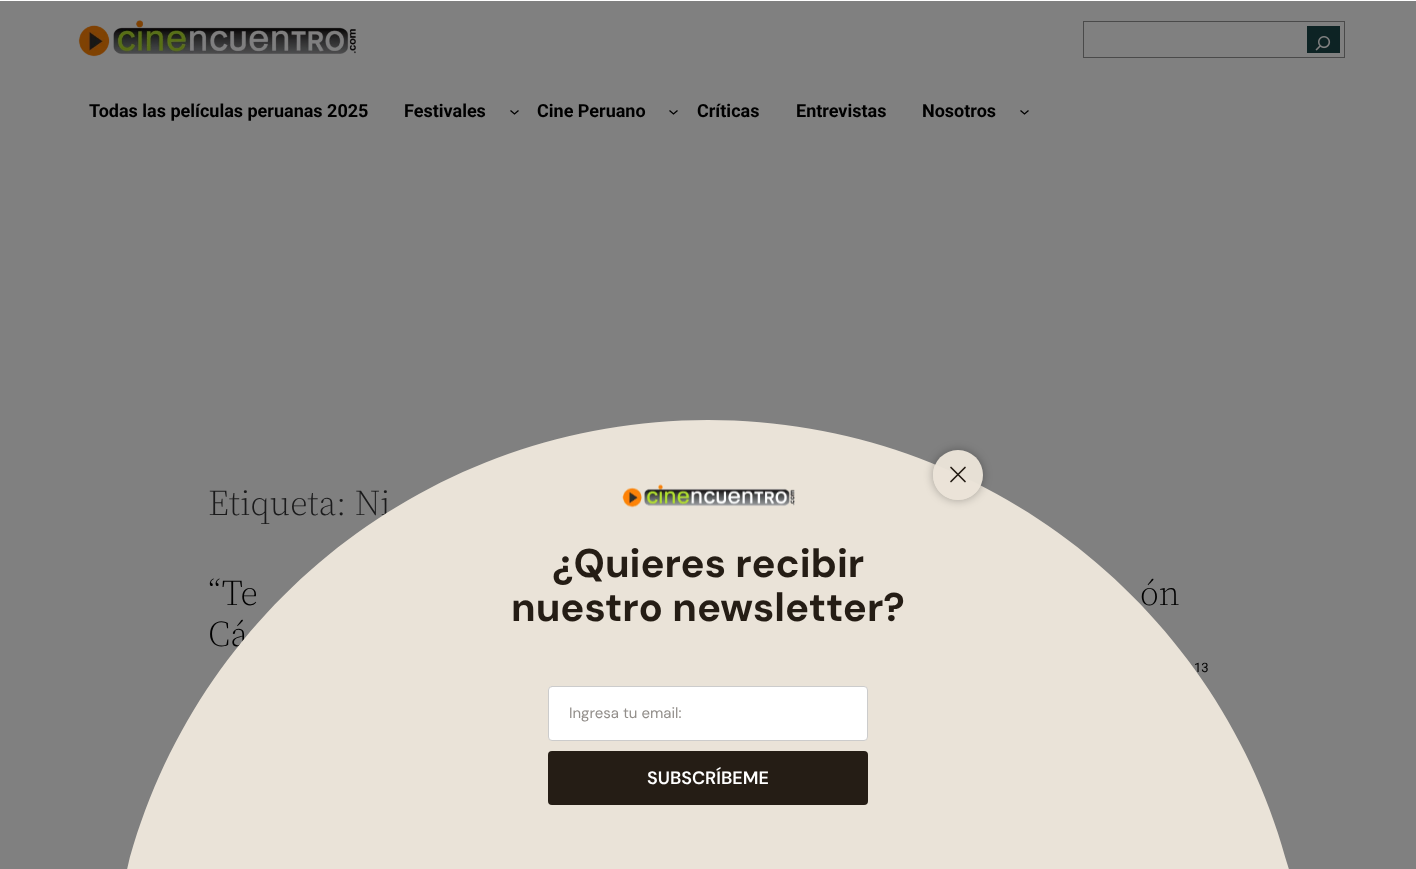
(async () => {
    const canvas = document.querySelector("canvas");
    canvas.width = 1416;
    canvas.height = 869;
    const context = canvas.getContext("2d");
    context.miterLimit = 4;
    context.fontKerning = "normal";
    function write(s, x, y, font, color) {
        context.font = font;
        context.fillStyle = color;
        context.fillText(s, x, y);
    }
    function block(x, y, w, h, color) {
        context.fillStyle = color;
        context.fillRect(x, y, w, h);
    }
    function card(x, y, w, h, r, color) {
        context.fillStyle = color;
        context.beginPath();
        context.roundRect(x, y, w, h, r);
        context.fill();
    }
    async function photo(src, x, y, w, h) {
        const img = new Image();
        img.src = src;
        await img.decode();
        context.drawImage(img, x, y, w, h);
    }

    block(0, 0, 1416, 869, "rgb(255, 255, 255)");
    block(0, 1, 1416, 868, "rgb(128, 128, 128)");
    await photo("media/1.png", 78, 20, 278, 37);
    context.strokeStyle = "rgb(74, 74, 74)";
    context.strokeRect(1083.5, 21.5, 261, 36);
    block(1307, 26, 33, 27, "rgb(13, 35, 36)");
    await photo("media/2.png", 1315, 36, 16, 15);
    write("Todas las películas peruanas 2025", 89, 117, "bold 18px Roboto", "rgb(0, 0, 0)");
    write("Festivales", 404, 117, "bold 18px Roboto", "rgb(0, 0, 0)");
    context.beginPath();
    context.moveTo(510.5, 110.5);
    context.lineTo(514.5, 114);
    context.lineTo(518.5, 110.5);
    context.strokeStyle = "rgb(0, 0, 0)";
    context.lineWidth = 1.3;
    context.stroke();
    write("Cine Peruano", 537, 117, "bold 18px Roboto", "rgb(0, 0, 0)");
    context.beginPath();
    context.moveTo(669.5, 110.5);
    context.lineTo(673.5, 114);
    context.lineTo(677.5, 110.5);
    context.stroke();
    write("Críticas", 697, 117, "bold 18px Roboto", "rgb(0, 0, 0)");
    write("Entrevistas", 796, 117, "bold 18px Roboto", "rgb(0, 0, 0)");
    write("Nosotros", 922, 117, "bold 18px Roboto", "rgb(0, 0, 0)");
    context.beginPath();
    context.moveTo(1020.5, 110.5);
    context.lineTo(1024.5, 114);
    context.lineTo(1028.5, 110.5);
    context.stroke();
    write("Etiqueta: Ni", 208, 515, "300 36px 'Source Serif 4'", "rgb(26, 26, 27)");
    write("“Te", 208, 605, "300 36px 'Source Serif 4'", "rgb(0, 0, 0)");
    write("ón", 1140, 605, "300 36px 'Source Serif 4'", "rgb(0, 0, 0)");
    write("Cá", 208, 646, "300 36px 'Source Serif 4'", "rgb(0, 0, 0)");
    write("13", 1194, 672, "13px Roboto", "rgb(0, 0, 0)");
    context.fillStyle = "rgb(234, 227, 216)";
    context.beginPath();
    context.moveTo(708, 420);
    context.bezierCurveTo(1039.5, 420, 1308, 688.5, 1308, 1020);
    context.lineTo(1308, 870);
    context.lineTo(108, 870);
    context.lineTo(108, 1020);
    context.bezierCurveTo(108, 688.5, 376.5, 420, 708, 420);
    context.closePath();
    context.fill();
    context.save();
    context.beginPath();
    context.moveTo(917, 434);
    context.lineTo(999, 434);
    context.lineTo(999, 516);
    context.lineTo(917, 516);
    context.closePath();
    context.moveTo(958, 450);
    context.bezierCurveTo(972, 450, 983, 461, 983, 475);
    context.bezierCurveTo(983, 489, 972, 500, 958, 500);
    context.bezierCurveTo(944, 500, 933, 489, 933, 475);
    context.bezierCurveTo(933, 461, 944, 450, 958, 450);
    context.closePath();
    context.clip("evenodd");
    context.fillStyle = "rgba(0, 0, 0, 0.3)";
    context.filter = "blur(5px)";
    context.beginPath();
    context.roundRect(933, 450, 50, 50, 25);
    context.fill();
    context.filter = "none";
    context.restore();
    context.fillStyle = "rgba(234, 227, 216, 0.97)";
    context.beginPath();
    context.arc(958, 475, 25, 0, Math.PI * 2);
    context.fill();
    context.beginPath();
    context.moveTo(951, 467.5);
    context.lineTo(965, 481.5);
    context.moveTo(965, 467.5);
    context.lineTo(951, 481.5);
    context.strokeStyle = "rgb(37, 29, 21)";
    context.lineWidth = 1.7;
    context.lineCap = "round";
    context.stroke();
    await photo("media/3.png", 622, 484, 173, 24);
    write("¿Quieres recibir", 552, 577, "bold 40px DM Sans", "rgb(37, 29, 21)");
    write("nuestro newsletter?", 511, 621, "bold 40px DM Sans", "rgb(37, 29, 21)");
    context.fillStyle = "rgb(255, 255, 255)";
    context.beginPath();
    context.roundRect(548.5, 686.5, 319, 54, 3.5);
    context.fill();
    context.strokeStyle = "rgb(204, 204, 204)";
    context.lineWidth = 1;
    context.stroke();
    write("Ingresa tu email:", 569, 718, "15px DM Sans", "rgb(146, 142, 138)");
    card(548, 751, 320, 54, 4, "rgb(37, 29, 21)");
    write("SUBSCRÍBEME", 647, 784, "600 18px DM Sans", "rgb(255, 255, 255)");
})();
